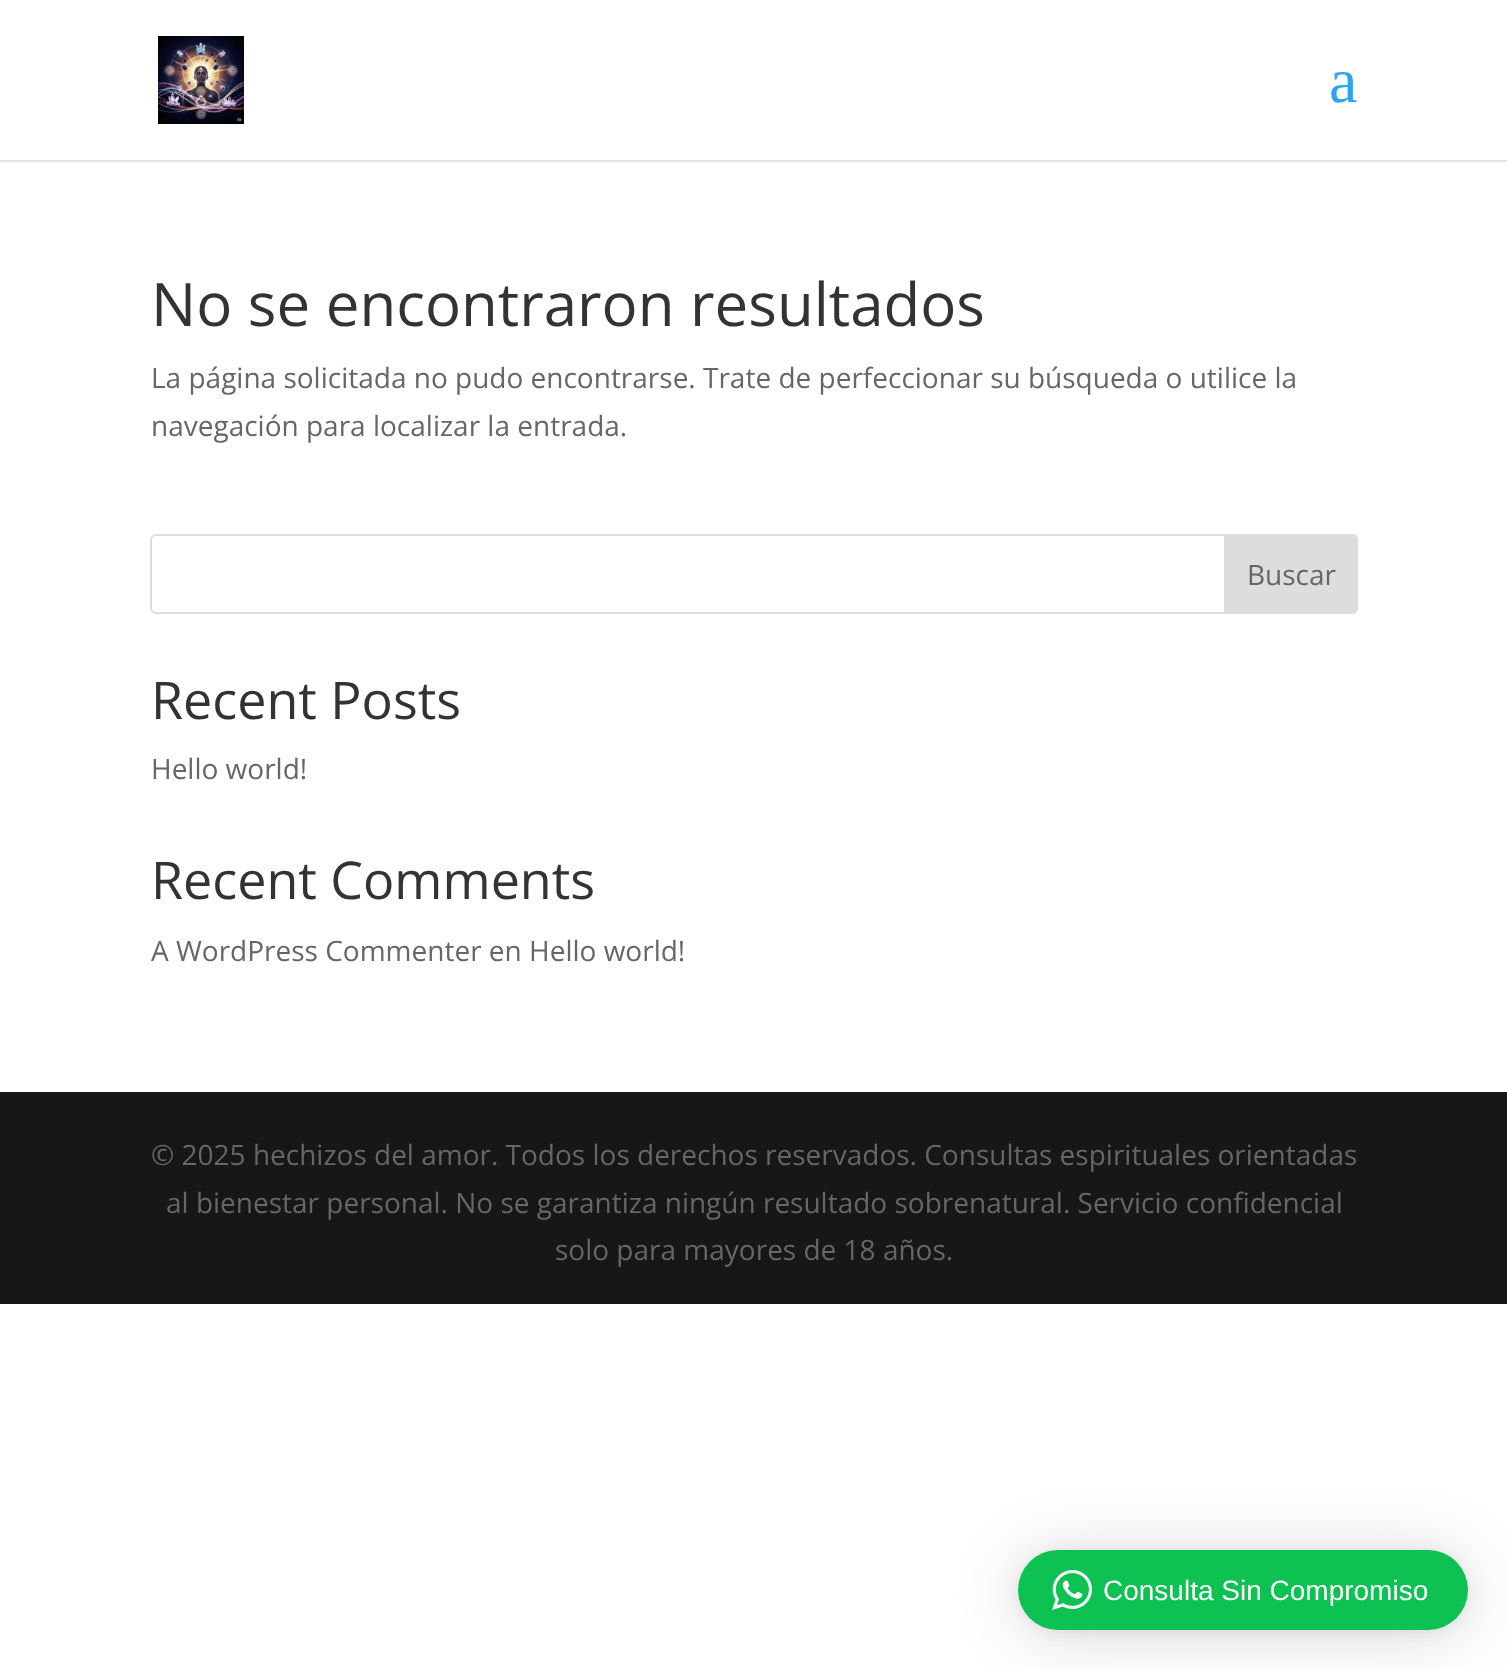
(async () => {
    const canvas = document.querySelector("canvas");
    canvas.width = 1507;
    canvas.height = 1669;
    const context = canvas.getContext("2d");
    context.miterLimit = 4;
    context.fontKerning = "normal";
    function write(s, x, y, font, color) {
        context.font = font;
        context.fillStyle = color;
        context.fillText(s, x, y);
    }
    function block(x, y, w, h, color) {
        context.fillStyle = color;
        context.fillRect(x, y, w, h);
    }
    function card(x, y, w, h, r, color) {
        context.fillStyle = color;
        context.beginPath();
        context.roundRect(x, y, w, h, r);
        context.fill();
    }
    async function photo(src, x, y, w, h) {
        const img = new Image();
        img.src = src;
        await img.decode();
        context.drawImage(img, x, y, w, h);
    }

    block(0, 0, 1507, 1669, "rgb(255, 255, 255)");
    block(0, 160, 1507, 2, "rgb(230, 230, 230)");
    await photo("media/1.png", 158, 36, 86, 88);
    write("a", 1329, 102, "64px Liberation Serif", "rgb(46, 163, 242)");
    write("No se encontraron resultados", 151, 326, "60px Open Sans", "rgb(51, 51, 51)");
    write("La página solicitada no pudo encontrarse. Trate de perfeccionar su búsqueda o utilice la", 151, 388, "28px Open Sans", "rgb(102, 102, 102)");
    write("navegación para localizar la entrada.", 151, 436, "28px Open Sans", "rgb(102, 102, 102)");
    context.beginPath();
    context.roundRect(151, 535, 1206, 78, 5);
    context.strokeStyle = "rgb(221, 221, 221)";
    context.lineWidth = 2;
    context.stroke();
    context.fillStyle = "rgb(221, 221, 221)";
    context.beginPath();
    context.roundRect(1225, 535, 132, 78, [0, 5, 5, 0]);
    context.fill();
    context.stroke();
    write("Buscar", 1247, 585, "28px Open Sans", "rgb(102, 102, 102)");
    write("Recent Posts", 151, 719, "52px Open Sans", "rgb(51, 51, 51)");
    write("Hello world!", 151, 779, "28px Open Sans", "rgb(102, 102, 102)");
    write("Recent Comments", 151, 899, "52px Open Sans", "rgb(51, 51, 51)");
    write("A WordPress Commenter en Hello world!", 151, 961, "28px Open Sans", "rgb(102, 102, 102)");
    block(0, 1092, 1507, 212, "rgb(23, 23, 23)");
    write("© 2025 hechizos del amor. Todos los derechos reservados. Consultas espirituales orientadas", 151, 1165, "28px Open Sans", "rgb(102, 102, 102)");
    write("al bienestar personal. No se garantiza ningún resultado sobrenatural. Servicio confidencial", 166, 1213, "28px Open Sans", "rgb(102, 102, 102)");
    write("solo para mayores de 18 años.", 555, 1260, "28px Open Sans", "rgb(102, 102, 102)");
    context.fillStyle = "rgba(0, 0, 0, 0.16)";
    context.filter = "blur(32px)";
    context.beginPath();
    context.roundRect(1018, 1554, 450, 80, 40);
    context.fill();
    context.filter = "none";
    context.fillStyle = "rgba(0, 0, 0, 0.06)";
    context.filter = "blur(6px)";
    context.beginPath();
    context.roundRect(1018, 1552, 450, 80, 40);
    context.fill();
    context.filter = "none";
    card(1018, 1550, 450, 80, 40, "rgb(13, 193, 82)");
    await photo("media/2.png", 1052, 1570, 40, 40);
    write("Consulta Sin Compromiso", 1103, 1600, "28px Liberation Sans", "rgb(255, 255, 255)");
})();
